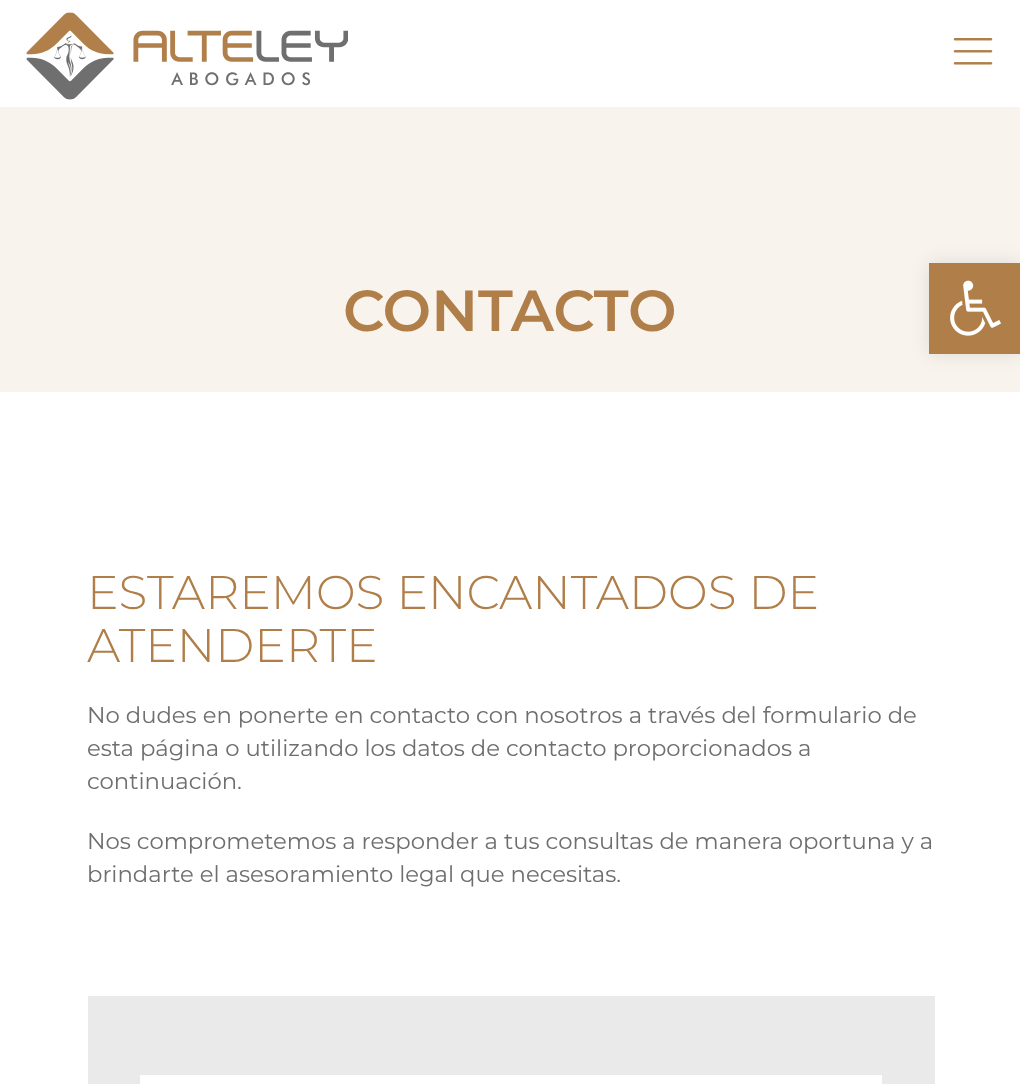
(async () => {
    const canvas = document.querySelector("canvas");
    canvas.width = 1020;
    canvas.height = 1084;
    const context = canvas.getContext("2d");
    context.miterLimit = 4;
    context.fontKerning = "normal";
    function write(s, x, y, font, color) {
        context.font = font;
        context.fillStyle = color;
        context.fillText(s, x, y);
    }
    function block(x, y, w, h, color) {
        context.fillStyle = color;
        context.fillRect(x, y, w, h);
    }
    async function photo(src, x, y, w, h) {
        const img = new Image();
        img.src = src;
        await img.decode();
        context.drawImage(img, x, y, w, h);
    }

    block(0, 0, 1020, 1084, "rgb(255, 255, 255)");
    await photo("media/1.png", 26, 12, 322, 88);
    await photo("media/2.png", 953, 38, 40, 27);
    block(0, 107, 1020, 285, "rgb(248, 243, 237)");
    write("CONTACTO", 343, 331, "600 57.75px Montserrat", "rgb(176, 126, 73)");
    write("ESTAREMOS ENCANTADOS DE", 87, 609, "300 47.25px Montserrat", "rgb(176, 126, 73)");
    write("ATENDERTE", 87, 662, "300 47.25px Montserrat", "rgb(176, 126, 73)");
    write("No dudes en ponerte en contacto con nosotros a través del formulario de", 87, 723, "22.75px Montserrat", "rgb(110, 110, 108)");
    write("esta página o utilizando los datos de contacto proporcionados a", 87, 756, "22.75px Montserrat", "rgb(110, 110, 108)");
    write("continuación.", 87, 789, "22.75px Montserrat", "rgb(110, 110, 108)");
    write("Nos comprometemos a responder a tus consultas de manera oportuna y a", 87, 849, "22.75px Montserrat", "rgb(110, 110, 108)");
    write("brindarte el asesoramiento legal que necesitas.", 87, 882, "22.75px Montserrat", "rgb(110, 110, 108)");
    block(88, 996, 847, 88, "rgb(234, 234, 234)");
    block(140, 1075, 742, 9, "rgb(255, 255, 255)");
    context.fillStyle = "rgba(0, 0, 0, 0.1)";
    context.filter = "blur(9px)";
    context.beginPath();
    context.rect(929, 263, 91, 91);
    context.fill();
    context.filter = "none";
    block(929, 263, 91, 91, "rgb(176, 126, 73)");
    await photo("media/3.png", 950, 280, 51, 56);
})();
